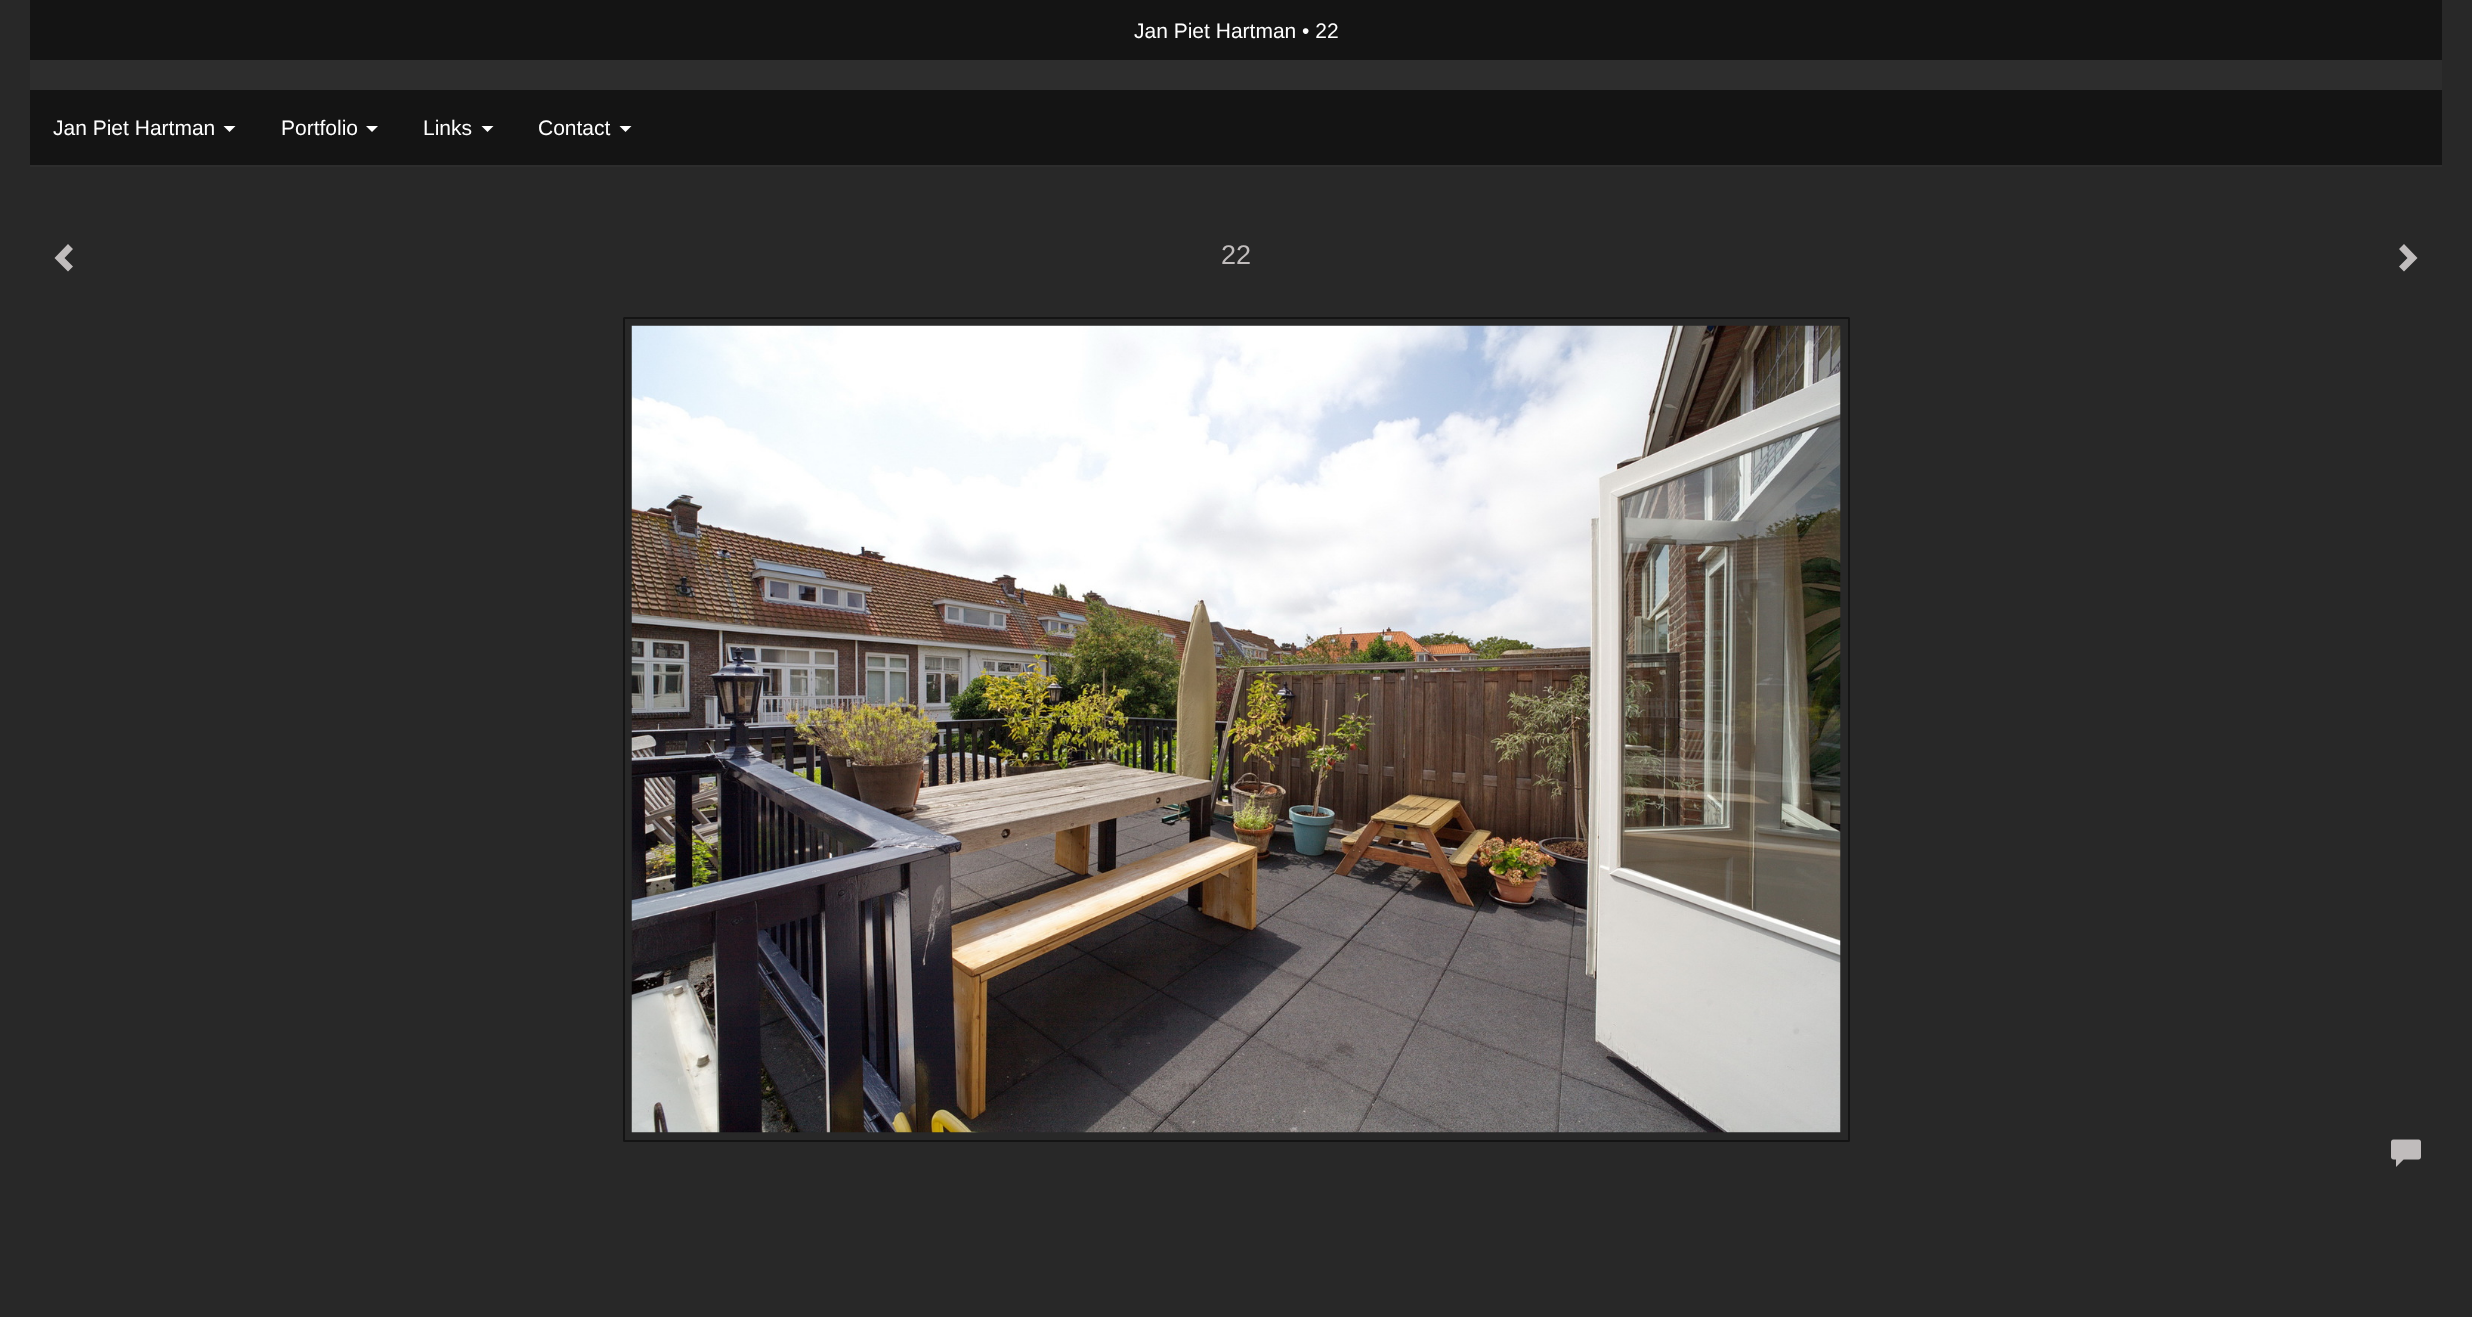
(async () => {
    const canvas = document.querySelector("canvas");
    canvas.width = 2472;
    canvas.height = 1317;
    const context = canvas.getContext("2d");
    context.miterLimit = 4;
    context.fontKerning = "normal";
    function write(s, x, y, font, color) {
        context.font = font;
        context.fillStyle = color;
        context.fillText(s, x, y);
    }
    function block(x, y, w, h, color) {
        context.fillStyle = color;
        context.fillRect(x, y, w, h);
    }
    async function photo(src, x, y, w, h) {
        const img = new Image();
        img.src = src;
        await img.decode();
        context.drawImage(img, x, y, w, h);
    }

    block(0, 0, 2472, 1317, "rgb(40, 40, 40)");
    block(30, 0, 2412, 60, "rgb(20, 20, 20)");
    write("Jan Piet Hartman • 22", 1134, 38, "21px Liberation Sans", "rgb(255, 255, 255)");
    block(30, 60, 2412, 30, "rgb(45, 45, 45)");
    block(30, 90, 2412, 75, "rgb(20, 20, 20)");
    block(30, 165, 2412, 2, "rgb(45, 45, 45)");
    write("Jan Piet Hartman", 53, 135, "21px Liberation Sans", "rgb(255, 255, 255)");
    context.beginPath();
    context.moveTo(223.5, 126);
    context.lineTo(235.5, 126);
    context.lineTo(229.5, 132);
    context.closePath();
    context.fill();
    write("Portfolio", 281, 135, "21px Liberation Sans", "rgb(255, 255, 255)");
    context.beginPath();
    context.moveTo(366, 126);
    context.lineTo(378, 126);
    context.lineTo(372, 132);
    context.closePath();
    context.fill();
    write("Links", 423, 135, "21px Liberation Sans", "rgb(255, 255, 255)");
    context.beginPath();
    context.moveTo(481.5, 126);
    context.lineTo(493.5, 126);
    context.lineTo(487.5, 132);
    context.closePath();
    context.fill();
    write("Contact", 538, 135, "21px Liberation Sans", "rgb(255, 255, 255)");
    context.beginPath();
    context.moveTo(619.5, 126);
    context.lineTo(631.5, 126);
    context.lineTo(625.5, 132);
    context.closePath();
    context.fill();
    context.fillStyle = "rgb(192, 188, 188)";
    context.beginPath();
    context.moveTo(73, 249);
    context.lineTo(64.5, 258);
    context.lineTo(73, 266.5);
    context.lineTo(68, 271.5);
    context.lineTo(54.5, 258);
    context.lineTo(68, 244);
    context.closePath();
    context.fill();
    write("22", 1221, 264, "27px Liberation Sans", "rgb(192, 188, 188)");
    context.beginPath();
    context.moveTo(2417.5, 258);
    context.lineTo(2404, 271.5);
    context.lineTo(2399, 266.5);
    context.lineTo(2407.5, 258);
    context.lineTo(2399, 249);
    context.lineTo(2404, 244);
    context.closePath();
    context.fill();
    context.beginPath();
    context.roundRect(624, 318, 1225, 823, 0.5);
    context.strokeStyle = "rgb(20, 20, 20)";
    context.lineWidth = 2;
    context.stroke();
    await photo("media/1.png", 631, 325, 1210, 808);
    await photo("media/2.png", 2391, 1139, 30, 28);
})();
